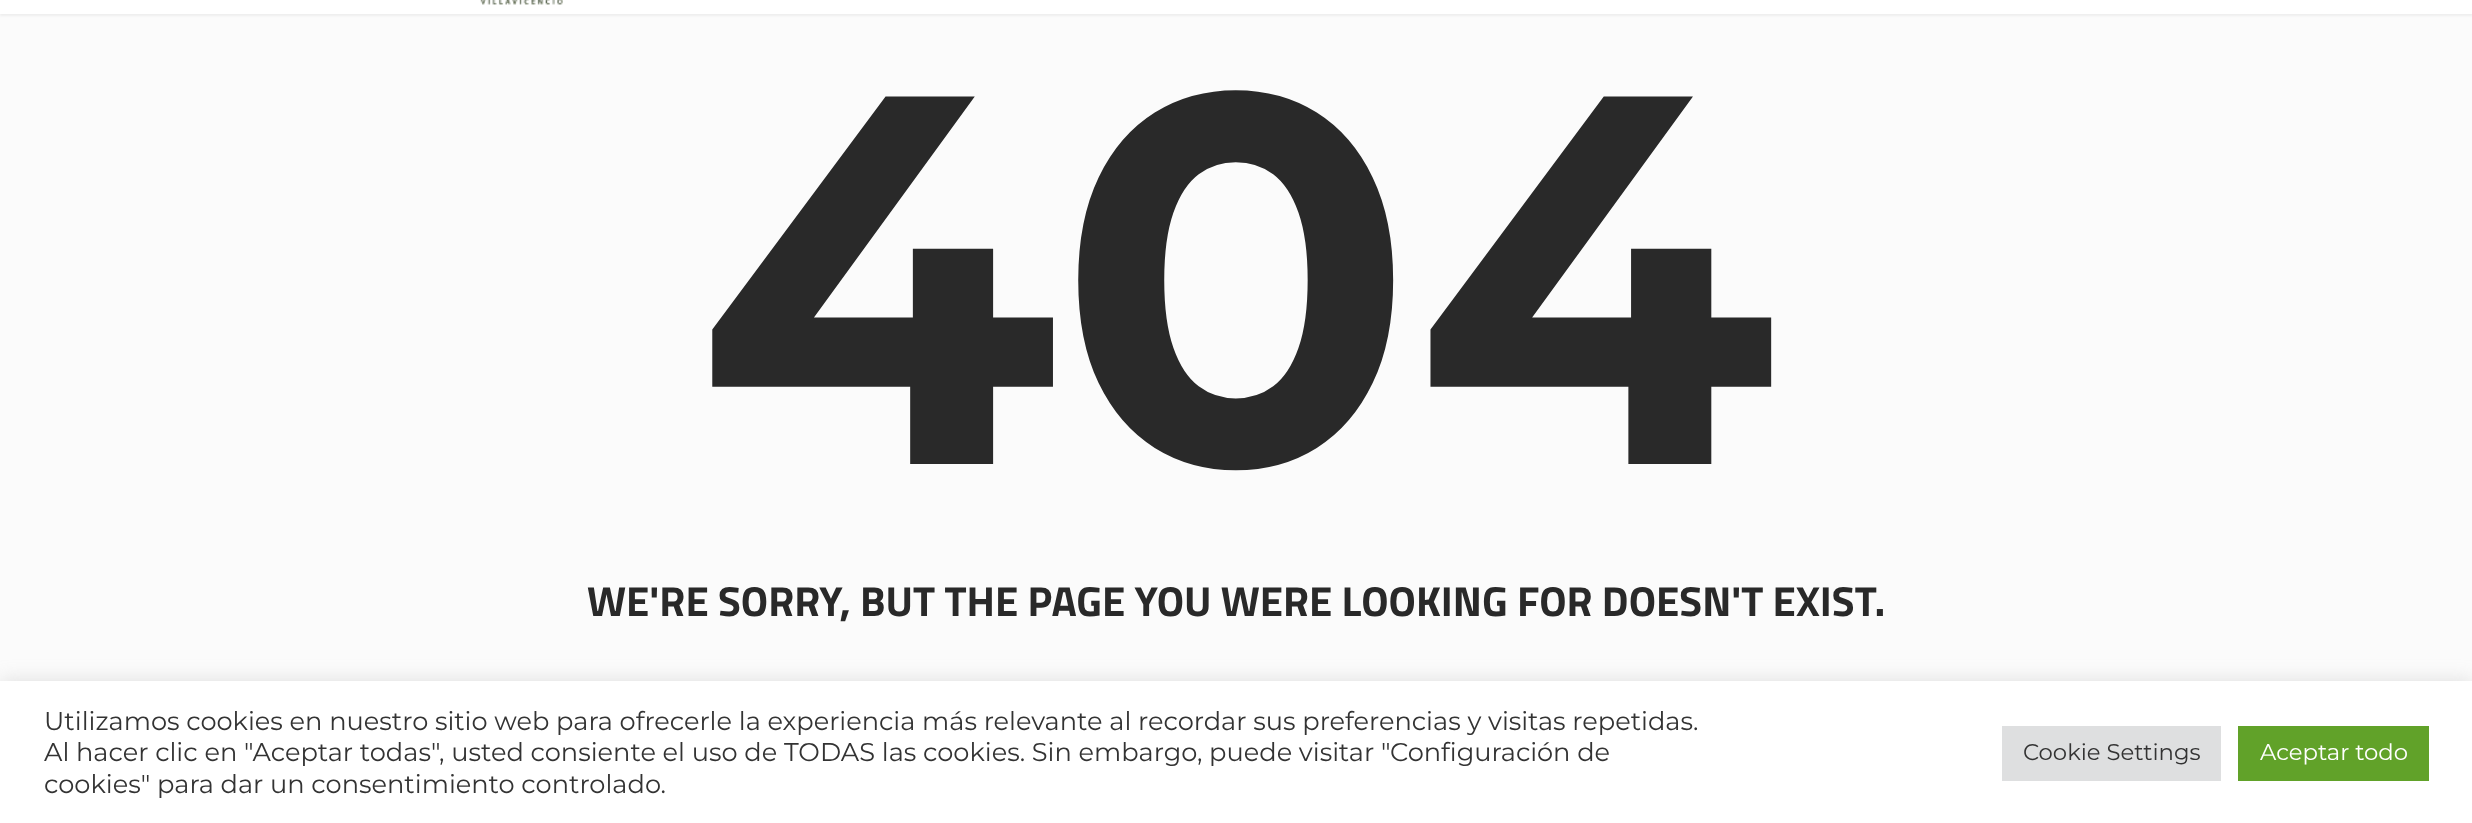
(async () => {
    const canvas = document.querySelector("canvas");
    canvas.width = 2472;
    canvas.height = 823;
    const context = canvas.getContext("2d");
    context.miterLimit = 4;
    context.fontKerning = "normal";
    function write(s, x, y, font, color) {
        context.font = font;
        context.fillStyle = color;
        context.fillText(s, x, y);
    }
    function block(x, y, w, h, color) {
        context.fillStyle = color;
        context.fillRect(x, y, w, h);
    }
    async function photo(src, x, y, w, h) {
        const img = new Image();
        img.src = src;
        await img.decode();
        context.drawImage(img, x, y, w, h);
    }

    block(0, 0, 2472, 823, "rgb(251, 251, 251)");
    context.fillStyle = "rgba(0, 0, 0, 0.05)";
    context.filter = "blur(1px)";
    context.beginPath();
    context.rect(0, -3, 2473, 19);
    context.fill();
    context.filter = "none";
    block(0, 0, 2472, 14, "rgb(255, 255, 255)");
    await photo("media/1.png", 480, 0, 83, 5);
    write("404", 696, 464, "bold 525px Montserrat", "rgb(41, 41, 41)");
    write("WE'RE SORRY, BUT THE PAGE YOU WERE LOOKING FOR DOESN'T EXIST.", 587, 616, "bold 42px Titillium Web", "rgb(41, 41, 41)");
    context.fillStyle = "rgba(172, 171, 171, 0.3)";
    context.filter = "blur(9px)";
    context.beginPath();
    context.rect(0, 679, 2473, 144);
    context.fill();
    context.filter = "none";
    block(0, 681, 2472, 142, "rgb(255, 255, 255)");
    write("Utilizamos cookies en nuestro sitio web para ofrecerle la experiencia más relevante al recordar sus preferencias y visitas repetidas.", 44, 730, "25.67px Montserrat", "rgb(51, 51, 51)");
    write("Al hacer clic en \"Aceptar todas\", usted consiente el uso de TODAS las cookies. Sin embargo, puede visitar \"Configuración de", 44, 761, "25.67px Montserrat", "rgb(51, 51, 51)");
    write("cookies\" para dar un consentimiento controlado.", 44, 793, "25.67px Montserrat", "rgb(51, 51, 51)");
    block(2002, 726, 219, 55, "rgb(222, 223, 224)");
    write("Cookie Settings", 2023, 760, "22.75px Montserrat", "rgb(51, 51, 51)");
    block(2238, 726, 191, 55, "rgb(97, 162, 41)");
    write("Aceptar todo", 2260, 760, "22.75px Montserrat", "rgb(255, 255, 255)");
})();
